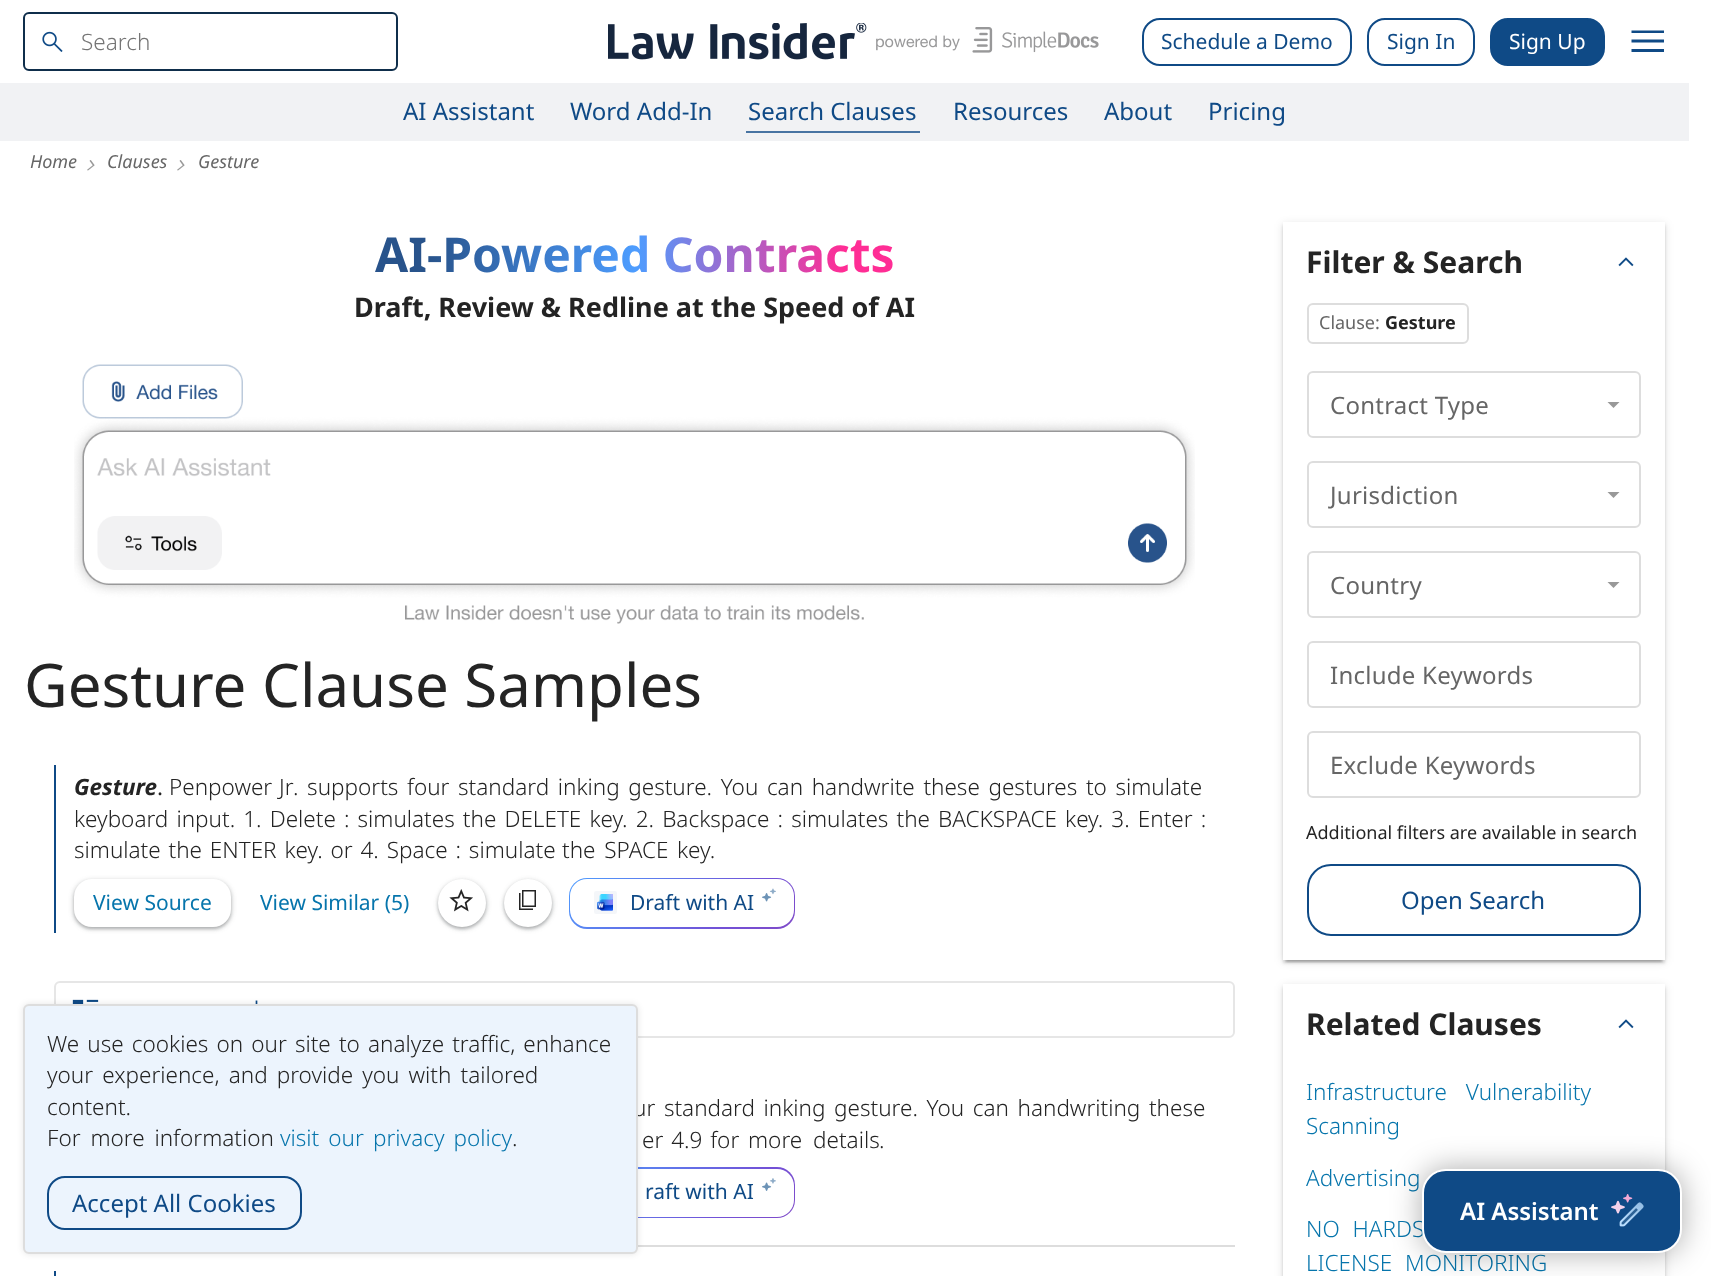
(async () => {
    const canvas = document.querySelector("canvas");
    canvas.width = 1711;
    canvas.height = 1276;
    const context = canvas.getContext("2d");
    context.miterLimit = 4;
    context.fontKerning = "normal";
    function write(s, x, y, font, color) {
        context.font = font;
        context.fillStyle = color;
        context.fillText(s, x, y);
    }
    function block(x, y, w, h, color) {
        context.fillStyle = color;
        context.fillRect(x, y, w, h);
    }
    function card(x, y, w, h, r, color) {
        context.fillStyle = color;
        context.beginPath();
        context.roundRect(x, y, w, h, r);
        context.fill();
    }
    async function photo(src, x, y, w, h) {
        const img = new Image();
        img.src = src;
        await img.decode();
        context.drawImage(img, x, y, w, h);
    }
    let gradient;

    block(0, 0, 1711, 1276, "rgb(255, 255, 255)");
    context.beginPath();
    context.roundRect(24, 13, 373, 57, 5);
    context.strokeStyle = "rgb(15, 46, 75)";
    context.lineWidth = 2;
    context.stroke();
    await photo("media/1.png", 42, 31, 21, 21);
    card(81, 14, 315, 55, 6, "rgb(255, 255, 255)");
    write("Search", 81, 50, "300 22.5px Noto Sans", "rgb(117, 117, 117)");
    await photo("media/2.png", 608, 23, 259, 37);
    await photo("media/3.png", 876, 27, 223, 26);
    context.beginPath();
    context.roundRect(1143, 19, 208, 46, 17);
    context.strokeStyle = "rgb(15, 74, 134)";
    context.stroke();
    write("Schedule a Demo", 1161, 49, "21px Noto Sans", "rgb(15, 74, 134)");
    context.beginPath();
    context.roundRect(1368, 19, 106, 46, 17);
    context.stroke();
    write("Sign In", 1387, 49, "21px Noto Sans", "rgb(15, 74, 134)");
    context.beginPath();
    context.roundRect(1491, 19, 113, 46, 17);
    context.fill();
    context.stroke();
    write("Sign Up", 1509, 49, "21px Noto Sans", "rgb(255, 255, 255)");
    context.fillStyle = "rgb(15, 74, 134)";
    context.beginPath();
    context.moveTo(1631.5, 52);
    context.lineTo(1631.5, 49);
    context.lineTo(1664, 49);
    context.lineTo(1664, 52);
    context.closePath();
    context.moveTo(1631.5, 42.5);
    context.lineTo(1631.5, 39.5);
    context.lineTo(1664, 39.5);
    context.lineTo(1664, 42.5);
    context.closePath();
    context.moveTo(1631.5, 33);
    context.lineTo(1631.5, 30.5);
    context.lineTo(1664, 30.5);
    context.lineTo(1664, 33);
    context.closePath();
    context.fill();
    block(0, 83, 1689, 58, "rgb(241, 242, 244)");
    write("AI Assistant", 403, 120, "24px Noto Sans", "rgb(15, 74, 134)");
    write("Word Add-In", 570, 120, "24px Noto Sans", "rgb(15, 74, 134)");
    block(746, 131, 174, 2, "rgb(72, 116, 162)");
    write("Search Clauses", 748, 120, "24px Noto Sans", "rgb(15, 74, 134)");
    write("Resources", 953, 120, "24px Noto Sans", "rgb(15, 74, 134)");
    write("About", 1104, 120, "24px Noto Sans", "rgb(15, 74, 134)");
    write("Pricing", 1208, 120, "24px Noto Sans", "rgb(15, 74, 134)");
    write("Home", 30, 168, "italic 18px Noto Sans", "rgb(102, 102, 102)");
    await photo("media/4.png", 87, 160, 8, 11);
    write("Clauses", 107, 168, "italic 18px Noto Sans", "rgb(102, 102, 102)");
    await photo("media/4.png", 177, 160, 8, 11);
    write("Gesture", 198, 168, "italic 18px Noto Sans", "rgb(102, 102, 102)");
    context.beginPath();
    context.roundRect(55, 982, 1179, 55, 5);
    context.strokeStyle = "rgb(230, 230, 230)";
    context.stroke();
    await photo("media/10.png", 72, 999, 27, 5);
    await photo("media/11.png", 255, 1000, 3, 4);
    gradient = context.createLinearGradient(920, 816, 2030, 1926);
    gradient.addColorStop(0, "rgb(77, 157, 255)");
    gradient.addColorStop(0.09, "rgb(114, 81, 215)");
    gradient.addColorStop(0.2, "rgb(158, 60, 168)");
    gradient.addColorStop(0.29, "rgb(176, 25, 131)");
    gradient.addColorStop(0.36, "rgb(158, 60, 168)");
    gradient.addColorStop(0.44, "rgb(114, 81, 215)");
    gradient.addColorStop(0.55, "rgb(77, 157, 255)");
    gradient.addColorStop(0.65, "rgb(114, 81, 215)");
    gradient.addColorStop(0.76, "rgb(176, 25, 131)");
    gradient.addColorStop(0.84, "rgb(158, 60, 168)");
    gradient.addColorStop(0.96, "rgb(114, 81, 215)");
    context.fillStyle = gradient;
    context.beginPath();
    context.roundRect(569, 1167, 226, 51, 18);
    context.fill();
    card(570, 1169, 224, 48, 17, "rgb(255, 255, 255)");
    block(638, 1245, 597, 2, "rgb(221, 221, 221)");
    context.fillStyle = "rgba(0, 0, 0, 0.1)";
    context.filter = "blur(3px)";
    context.beginPath();
    context.roundRect(23, 1004, 615, 250, 6);
    context.fill();
    context.filter = "none";
    context.wordSpacing = "2.75px";
    write("ur standard inking gesture. You can handwriting these", 633, 1116, "300 22.5px Noto Sans", "rgb(36, 36, 36)");
    context.fillStyle = "rgb(236, 244, 253)";
    context.beginPath();
    context.roundRect(24, 1005, 613, 248, 5);
    context.fill();
    context.strokeStyle = "rgb(221, 221, 221)";
    context.stroke();
    context.wordSpacing = "2.25px";
    write("We use cookies on our site to analyze traffic, enhance", 47, 1052, "300 22.5px Noto Sans", "rgb(36, 36, 36)");
    context.wordSpacing = "3.25px";
    write("your experience, and provide you with tailored", 47, 1083, "300 22.5px Noto Sans", "rgb(36, 36, 36)");
    context.wordSpacing = "0px";
    write("content.", 47, 1115, "300 22.5px Noto Sans", "rgb(36, 36, 36)");
    context.wordSpacing = "4px";
    write("For more information", 47, 1146, "300 22.5px Noto Sans", "rgb(36, 36, 36)");
    context.wordSpacing = "3.25px";
    write("visit our privacy policy", 280, 1146, "300 22.5px Noto Sans", "rgb(6, 117, 172)");
    context.wordSpacing = "0px";
    write(".", 512, 1146, "300 22.5px Noto Sans", "rgb(36, 36, 36)");
    context.beginPath();
    context.roundRect(48, 1177, 253, 52, 17);
    context.strokeStyle = "rgb(15, 74, 134)";
    context.stroke();
    write("Accept All Cookies", 72, 1212, "24px Noto Sans", "rgb(15, 74, 134)");
    context.font = "bold 48px Noto Sans";
    gradient = context.createLinearGradient(375, 254, 895, 254);
    gradient.addColorStop(0.1, "rgb(40, 83, 139)");
    gradient.addColorStop(0.5, "rgb(77, 157, 255)");
    gradient.addColorStop(0.9, "rgb(255, 45, 149)");
    context.fillStyle = gradient;
    context.fillText("AI-Powered Contracts", 375, 272);
    write("Draft, Review & Redline at the Speed of AI", 354, 317, "bold 27px Noto Sans", "rgb(36, 36, 36)");
    await photo("media/5.png", 74, 364, 1121, 260);
    write("Gesture Clause Samples", 24, 707, "60px Noto Sans", "rgb(36, 36, 36)");
    block(54, 765, 2, 168, "rgb(15, 74, 134)");
    write("Gesture", 74, 795, "italic bold 22.5px Noto Sans", "rgb(36, 36, 36)");
    write(".", 157, 795, "22.5px Noto Sans", "rgb(36, 36, 36)");
    context.wordSpacing = "1px";
    write("Penpower Jr", 169, 795, "300 22.5px Noto Sans", "rgb(36, 36, 36)");
    context.wordSpacing = "2.75px";
    write(". supports four standard inking gesture. You can handwrite these gestures to simulate", 293, 795, "300 22.5px Noto Sans", "rgb(36, 36, 36)");
    context.wordSpacing = "2.25px";
    write("keyboard input. 1. Delete : simulates the DELETE key. 2. Backspace : simulates the BACKSPACE key. 3. Enter :", 74, 827, "300 22.5px Noto Sans", "rgb(36, 36, 36)");
    context.wordSpacing = "2px";
    write("simulate the ENTER key. or 4. Space : simulate", 74, 858, "300 22.5px Noto Sans", "rgb(36, 36, 36)");
    context.wordSpacing = "3px";
    write("the SPACE", 562, 858, "300 22.5px Noto Sans", "rgb(36, 36, 36)");
    context.wordSpacing = "0px";
    write("key.", 677, 858, "300 22.5px Noto Sans", "rgb(36, 36, 36)");
    context.fillStyle = "rgba(60, 64, 67, 0.15)";
    context.filter = "blur(2px)";
    context.beginPath();
    context.roundRect(72, 879, 161, 51, 20);
    context.fill();
    context.filter = "none";
    context.fillStyle = "rgba(60, 64, 67, 0.3)";
    context.filter = "blur(1.5px)";
    context.beginPath();
    context.roundRect(74, 881, 157, 48, 18);
    context.fill();
    context.filter = "none";
    card(74, 879, 157, 48, 18, "rgb(255, 255, 255)");
    write("View Source", 93, 910, "21px Noto Sans", "rgb(6, 117, 172)");
    write("View Similar (5)", 260, 910, "21px Noto Sans", "rgb(6, 117, 172)");
    context.fillStyle = "rgba(60, 64, 67, 0.15)";
    context.filter = "blur(2px)";
    context.beginPath();
    context.roundRect(437, 879, 51, 51, 25.5);
    context.fill();
    context.filter = "none";
    context.fillStyle = "rgba(60, 64, 67, 0.3)";
    context.filter = "blur(1.5px)";
    context.beginPath();
    context.roundRect(438, 881, 48, 48, 24);
    context.fill();
    context.filter = "none";
    context.fillStyle = "rgb(255, 255, 255)";
    context.beginPath();
    context.arc(462, 903, 24, 0, Math.PI * 2);
    context.fill();
    await photo("media/6.png", 449, 889, 24, 23);
    context.fillStyle = "rgba(60, 64, 67, 0.15)";
    context.filter = "blur(2px)";
    context.beginPath();
    context.roundRect(503, 879, 51, 51, 25.5);
    context.fill();
    context.filter = "none";
    context.fillStyle = "rgba(60, 64, 67, 0.3)";
    context.filter = "blur(1.5px)";
    context.beginPath();
    context.roundRect(504, 881, 48, 48, 24);
    context.fill();
    context.filter = "none";
    context.fillStyle = "rgb(255, 255, 255)";
    context.beginPath();
    context.arc(528, 903, 24, 0, Math.PI * 2);
    context.fill();
    await photo("media/7.png", 519, 890, 17, 20);
    gradient = context.createLinearGradient(920, 527, 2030, 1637);
    gradient.addColorStop(0, "rgb(77, 157, 255)");
    gradient.addColorStop(0.09, "rgb(114, 81, 215)");
    gradient.addColorStop(0.2, "rgb(158, 60, 168)");
    gradient.addColorStop(0.29, "rgb(176, 25, 131)");
    gradient.addColorStop(0.36, "rgb(158, 60, 168)");
    gradient.addColorStop(0.44, "rgb(114, 81, 215)");
    gradient.addColorStop(0.55, "rgb(77, 157, 255)");
    gradient.addColorStop(0.65, "rgb(114, 81, 215)");
    gradient.addColorStop(0.76, "rgb(176, 25, 131)");
    gradient.addColorStop(0.84, "rgb(158, 60, 168)");
    gradient.addColorStop(0.96, "rgb(114, 81, 215)");
    context.fillStyle = gradient;
    context.beginPath();
    context.roundRect(569, 878, 226, 51, 18);
    context.fill();
    card(570, 879, 224, 48, 17, "rgb(255, 255, 255)");
    await photo("media/8.png", 594, 891, 23, 23);
    write("Draft with AI", 630, 910, "21px Noto Sans", "rgb(15, 74, 134)");
    await photo("media/9.png", 762, 888, 14, 14);
    context.wordSpacing = "2px";
    write("er 4.9 for", 642, 1148, "300 22.5px Noto Sans", "rgb(36, 36, 36)");
    context.wordSpacing = "5px";
    write("more details", 748, 1148, "300 22.5px Noto Sans", "rgb(36, 36, 36)");
    context.wordSpacing = "0px";
    write(".", 879, 1148, "300 22.5px Noto Sans", "rgb(36, 36, 36)");
    write("raft with AI", 645, 1199, "21px Noto Sans", "rgb(15, 74, 134)");
    await photo("media/12.png", 762, 1178, 14, 13);
    block(54, 1271, 2, 5, "rgb(15, 74, 134)");
    context.save();
    context.beginPath();
    context.moveTo(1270, 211);
    context.lineTo(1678, 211);
    context.lineTo(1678, 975);
    context.lineTo(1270, 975);
    context.closePath();
    context.moveTo(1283, 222);
    context.lineTo(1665, 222);
    context.lineTo(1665, 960);
    context.lineTo(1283, 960);
    context.closePath();
    context.clip("evenodd");
    context.fillStyle = "rgba(0, 0, 0, 0.12)";
    context.filter = "blur(4px)";
    context.beginPath();
    context.rect(1283, 224, 382, 738);
    context.fill();
    context.filter = "none";
    context.restore();
    context.save();
    context.beginPath();
    context.moveTo(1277, 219);
    context.lineTo(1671, 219);
    context.lineTo(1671, 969);
    context.lineTo(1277, 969);
    context.closePath();
    context.moveTo(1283, 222);
    context.lineTo(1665, 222);
    context.lineTo(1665, 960);
    context.lineTo(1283, 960);
    context.closePath();
    context.clip("evenodd");
    context.fillStyle = "rgba(0, 0, 0, 0.14)";
    context.filter = "blur(1.5px)";
    context.beginPath();
    context.rect(1283, 225, 382, 738);
    context.fill();
    context.filter = "none";
    context.restore();
    context.save();
    context.beginPath();
    context.rect(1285, 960, 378, 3);
    context.clip();
    context.fillStyle = "rgba(0, 0, 0, 0.2)";
    context.filter = "blur(1px)";
    context.beginPath();
    context.rect(1286, 230, 376, 732);
    context.fill();
    context.filter = "none";
    context.restore();
    write("Filter & Search", 1306, 273, "bold 30px Noto Sans", "rgb(36, 36, 36)");
    await photo("media/13.png", 1618, 257, 16, 10);
    context.beginPath();
    context.roundRect(1308, 304, 160, 39, 5);
    context.strokeStyle = "rgb(221, 221, 221)";
    context.stroke();
    write("Clause:", 1319, 329, "18px Noto Sans", "rgb(102, 102, 102)");
    write("Gesture", 1385, 329, "bold 18px Noto Sans", "rgb(36, 36, 36)");
    context.beginPath();
    context.roundRect(1308, 372, 332, 65, 5);
    context.stroke();
    context.letterSpacing = "0.25px";
    write("Contract Type", 1330, 414, "24px Noto Sans", "rgb(102, 102, 102)");
    context.fillStyle = "rgb(153, 153, 153)";
    context.beginPath();
    context.moveTo(1613.5, 408);
    context.lineTo(1607.5, 402);
    context.lineTo(1619.5, 402);
    context.closePath();
    context.fill();
    context.beginPath();
    context.roundRect(1308, 462, 332, 65, 5);
    context.stroke();
    write("Jurisdiction", 1330, 504, "24px Noto Sans", "rgb(102, 102, 102)");
    context.fillStyle = "rgb(153, 153, 153)";
    context.beginPath();
    context.moveTo(1613.5, 498);
    context.lineTo(1607.5, 492);
    context.lineTo(1619.5, 492);
    context.closePath();
    context.fill();
    context.beginPath();
    context.roundRect(1308, 552, 332, 65, 5);
    context.stroke();
    write("Country", 1330, 594, "24px Noto Sans", "rgb(102, 102, 102)");
    context.fillStyle = "rgb(153, 153, 153)";
    context.beginPath();
    context.moveTo(1613.5, 588);
    context.lineTo(1607.5, 582);
    context.lineTo(1619.5, 582);
    context.closePath();
    context.fill();
    context.beginPath();
    context.roundRect(1308, 642, 332, 65, 5);
    context.stroke();
    write("Include Keywords", 1330, 684, "24px Noto Sans", "rgb(102, 102, 102)");
    context.beginPath();
    context.roundRect(1308, 732, 332, 65, 5);
    context.stroke();
    write("Exclude Keywords", 1330, 774, "24px Noto Sans", "rgb(102, 102, 102)");
    context.letterSpacing = "0px";
    write("Additional filters are available in search", 1306, 839, "18px Noto Sans", "rgb(36, 36, 36)");
    context.beginPath();
    context.roundRect(1308, 865, 332, 70, 23);
    context.strokeStyle = "rgb(15, 74, 134)";
    context.stroke();
    write("Open Search", 1401, 909, "24px Noto Sans", "rgb(15, 74, 134)");
    context.save();
    context.beginPath();
    context.moveTo(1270, 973);
    context.lineTo(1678, 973);
    context.lineTo(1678, 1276);
    context.lineTo(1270, 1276);
    context.closePath();
    context.moveTo(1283, 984);
    context.lineTo(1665, 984);
    context.lineTo(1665, 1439);
    context.lineTo(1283, 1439);
    context.closePath();
    context.clip("evenodd");
    context.fillStyle = "rgba(0, 0, 0, 0.12)";
    context.filter = "blur(4px)";
    context.beginPath();
    context.rect(1283, 986, 382, 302);
    context.fill();
    context.filter = "none";
    context.restore();
    context.save();
    context.beginPath();
    context.moveTo(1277, 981);
    context.lineTo(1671, 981);
    context.lineTo(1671, 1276);
    context.lineTo(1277, 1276);
    context.closePath();
    context.moveTo(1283, 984);
    context.lineTo(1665, 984);
    context.lineTo(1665, 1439);
    context.lineTo(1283, 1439);
    context.closePath();
    context.clip("evenodd");
    context.fillStyle = "rgba(0, 0, 0, 0.14)";
    context.filter = "blur(1.5px)";
    context.beginPath();
    context.rect(1283, 987, 382, 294);
    context.fill();
    context.filter = "none";
    context.restore();
    write("Related Clauses", 1306, 1035, "bold 30px Noto Sans", "rgb(36, 36, 36)");
    await photo("media/14.png", 1618, 1019, 16, 10);
    context.wordSpacing = "13px";
    write("Infrastructure Vulnerability", 1306, 1100, "300 22.5px Noto Sans", "rgb(6, 117, 172)");
    context.wordSpacing = "0px";
    write("Scanning", 1306, 1134, "300 22.5px Noto Sans", "rgb(6, 117, 172)");
    write("Advertising", 1306, 1186, "300 22.5px Noto Sans", "rgb(6, 117, 172)");
    context.wordSpacing = "7px";
    write("NO HARDS", 1306, 1237, "300 22.5px Noto Sans", "rgb(6, 117, 172)");
    write("LICENSE MONITORING", 1306, 1271, "300 22.5px Noto Sans", "rgb(6, 117, 172)");
    context.fillStyle = "rgba(0, 0, 0, 0.33)";
    context.filter = "blur(15px)";
    context.beginPath();
    context.roundRect(1422, 1169, 260, 84, 24);
    context.fill();
    context.filter = "none";
    context.fillStyle = "rgb(15, 74, 134)";
    context.beginPath();
    context.roundRect(1423, 1170, 258, 82, 23);
    context.fill();
    context.strokeStyle = "rgb(255, 255, 255)";
    context.stroke();
    context.wordSpacing = "0px";
    write("AI Assistant", 1460, 1220, "600 24px Noto Sans", "rgb(255, 255, 255)");
    await photo("media/15.png", 1611, 1194, 33, 33);
})();
